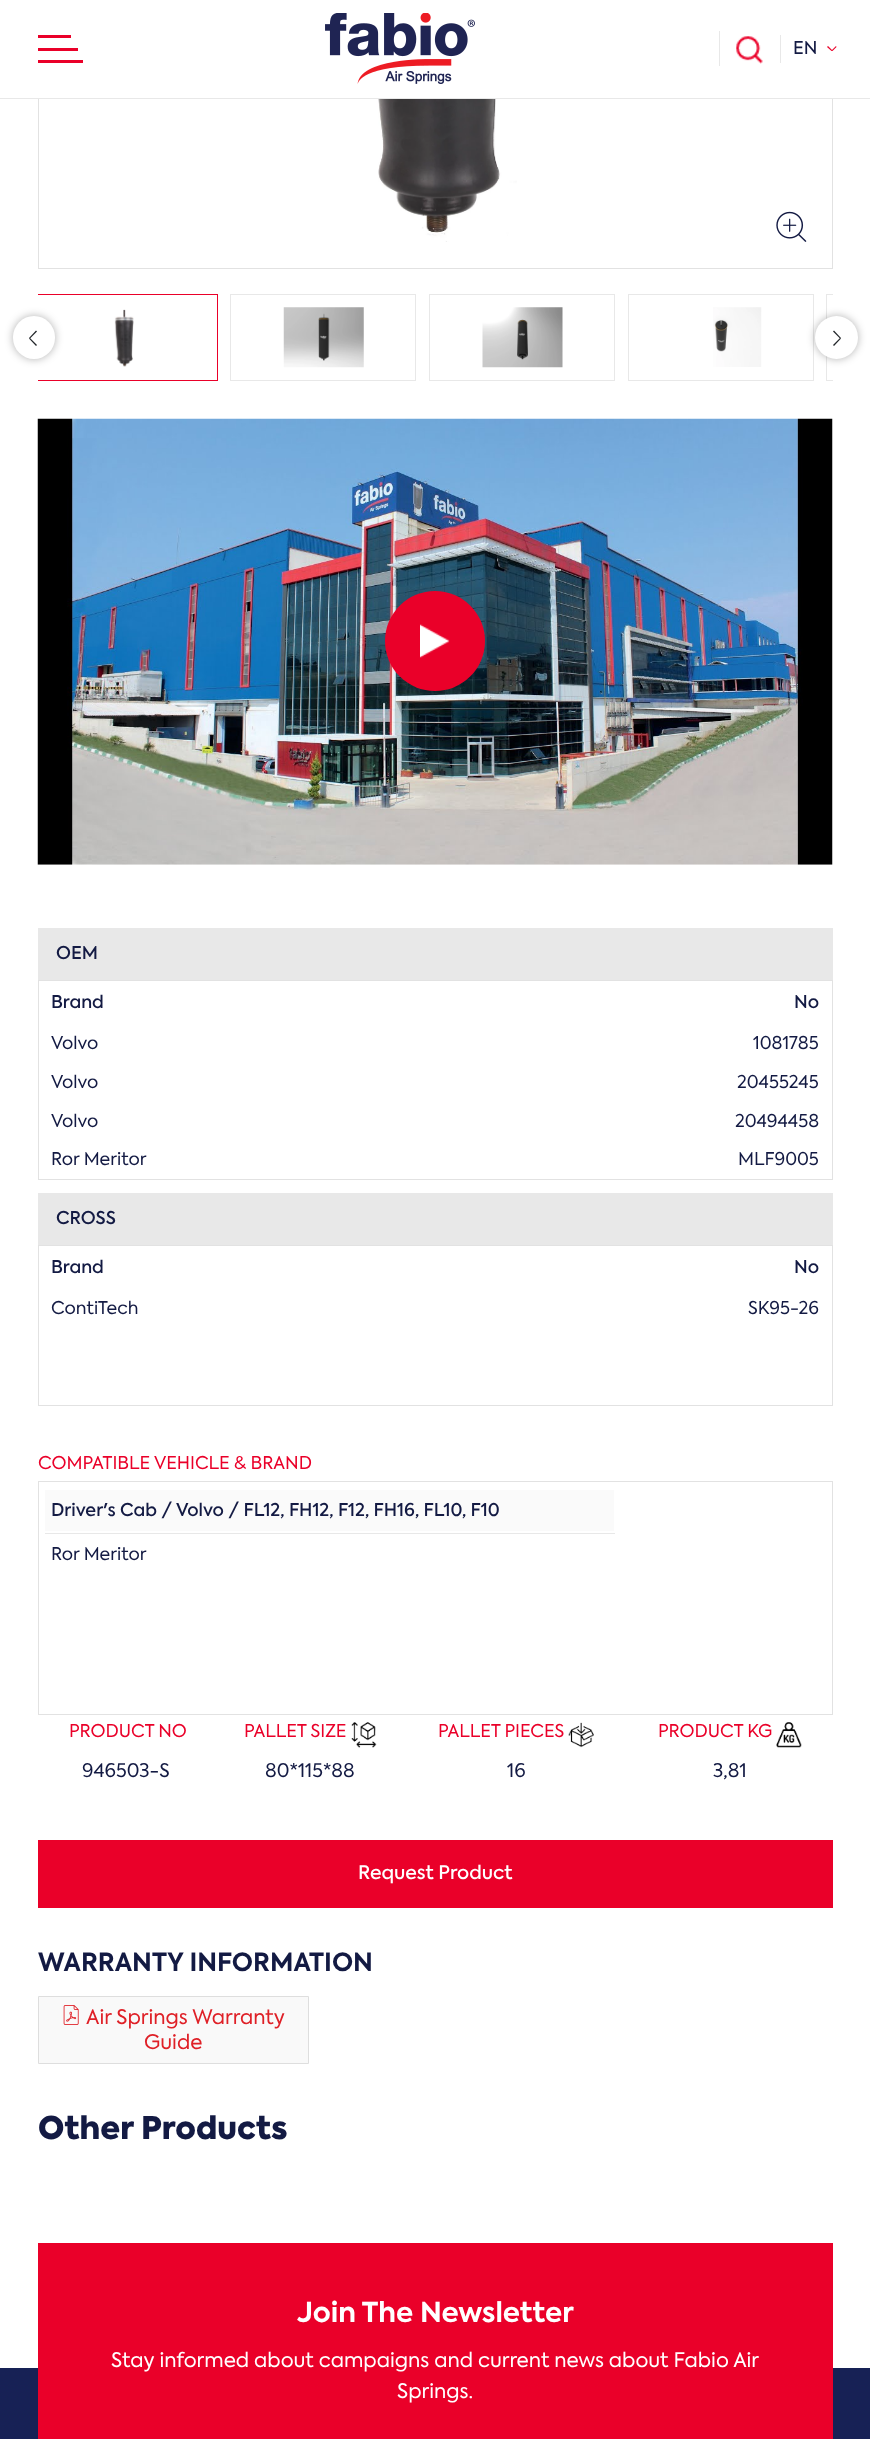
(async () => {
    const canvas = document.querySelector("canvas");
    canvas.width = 870;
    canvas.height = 2439;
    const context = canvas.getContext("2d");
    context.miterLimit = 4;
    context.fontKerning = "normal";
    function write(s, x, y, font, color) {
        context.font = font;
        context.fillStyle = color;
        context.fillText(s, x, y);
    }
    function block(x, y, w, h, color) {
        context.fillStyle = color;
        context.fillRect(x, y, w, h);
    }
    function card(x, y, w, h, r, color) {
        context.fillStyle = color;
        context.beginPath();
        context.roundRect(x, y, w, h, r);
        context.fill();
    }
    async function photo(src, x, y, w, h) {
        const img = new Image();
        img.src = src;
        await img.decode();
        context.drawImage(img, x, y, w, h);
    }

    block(0, 0, 870, 2439, "rgb(255, 255, 255)");
    context.strokeStyle = "rgb(226, 226, 226)";
    context.strokeRect(38.5, -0.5, 794, 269);
    block(38, 0, 795, 98, "rgb(255, 255, 255)");
    block(0, 98, 870, 1, "rgb(232, 232, 232)");
    block(38, 35, 33, 3, "rgb(234, 0, 41)");
    block(38, 48, 40, 3, "rgb(234, 0, 41)");
    block(38, 60, 45, 3, "rgb(234, 0, 41)");
    await photo("media/1.png", 325, 13, 150, 71);
    block(719, 31, 1, 35, "rgb(232, 232, 232)");
    await photo("media/2.png", 736, 36, 27, 28);
    block(780, 35, 1, 28, "rgb(232, 232, 232)");
    write("EN", 793, 54, "17.5px 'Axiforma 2'", "rgb(19, 26, 67)");
    context.fillStyle = "rgb(234, 0, 41)";
    context.beginPath();
    context.moveTo(827, 47);
    context.lineTo(828, 46);
    context.lineTo(832.5, 50.5);
    context.lineTo(831.5, 51);
    context.closePath();
    context.fill();
    context.beginPath();
    context.moveTo(836, 46);
    context.lineTo(836.5, 47);
    context.lineTo(832.5, 51);
    context.lineTo(831.5, 50.5);
    context.closePath();
    context.fill();
    await photo("media/3.png", 370, 99, 147, 143);
    await photo("media/4.png", 776, 211, 31, 31);
    context.save();
    context.beginPath();
    context.rect(38, 294, 795, 87);
    context.clip();
    context.strokeStyle = "rgb(234, 0, 41)";
    context.strokeRect(31.5, 294.5, 186, 86);
    context.restore();
    await photo("media/5.png", 114, 309, 20, 58);
    context.strokeStyle = "rgb(232, 232, 232)";
    context.strokeRect(230.5, 294.5, 185, 86);
    await photo("media/6.png", 283, 307, 81, 61);
    context.strokeRect(429.5, 294.5, 185, 86);
    await photo("media/7.png", 482, 307, 81, 61);
    context.strokeRect(628.5, 294.5, 185, 86);
    await photo("media/8.png", 713, 307, 49, 60);
    context.save();
    context.beginPath();
    context.rect(38, 294, 795, 87);
    context.clip();
    context.strokeRect(826.5, 294.5, 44, 86);
    context.restore();
    context.fillStyle = "rgba(0, 0, 0, 0.3)";
    context.filter = "blur(4.5px)";
    context.beginPath();
    context.roundRect(13, 316, 42, 43, 21);
    context.fill();
    context.filter = "none";
    card(13, 316, 42, 43, 21, "rgb(255, 255, 255)");
    context.fillStyle = "rgb(33, 37, 41)";
    context.beginPath();
    context.moveTo(37, 345);
    context.lineTo(36, 346);
    context.lineTo(29, 338.5);
    context.lineTo(30, 338);
    context.closePath();
    context.fill();
    context.beginPath();
    context.moveTo(36, 330.5);
    context.lineTo(37, 331.5);
    context.lineTo(30, 338.5);
    context.lineTo(29, 338);
    context.closePath();
    context.fill();
    context.fillStyle = "rgba(0, 0, 0, 0.3)";
    context.filter = "blur(4.5px)";
    context.beginPath();
    context.roundRect(815, 316, 43, 43, 21.5);
    context.fill();
    context.filter = "none";
    context.fillStyle = "rgb(255, 255, 255)";
    context.beginPath();
    context.arc(836.5, 337.5, 21.5, 0, Math.PI * 2);
    context.fill();
    context.fillStyle = "rgb(33, 37, 41)";
    context.beginPath();
    context.moveTo(834, 346);
    context.lineTo(833, 345);
    context.lineTo(840, 338);
    context.lineTo(841, 338.5);
    context.closePath();
    context.fill();
    context.beginPath();
    context.moveTo(833, 331.5);
    context.lineTo(834, 330.5);
    context.lineTo(841, 338);
    context.lineTo(840, 338.5);
    context.closePath();
    context.fill();
    await photo("media/9.png", 37, 418, 796, 447);
    context.fillStyle = "rgb(234, 0, 41)";
    context.beginPath();
    context.arc(435, 641, 50, 0, Math.PI * 2);
    context.fill();
    await photo("media/10.png", 420, 624, 30, 34);
    block(38, 928, 795, 52, "rgb(232, 232, 232)");
    write("OEM", 56, 959, "500 17.5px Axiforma", "rgb(19, 26, 67)");
    context.strokeStyle = "rgb(226, 226, 226)";
    context.strokeRect(38.5, 980.5, 794, 199);
    write("Brand", 51, 1008, "500 17.5px Axiforma", "rgb(19, 26, 67)");
    write("No", 794, 1008, "500 17.5px Axiforma", "rgb(19, 26, 67)");
    write("Volvo", 51, 1049, "17.5px Axiforma", "rgb(19, 26, 67)");
    write("1081785", 753, 1049, "17.5px Axiforma", "rgb(19, 26, 67)");
    write("Volvo", 51, 1088, "17.5px Axiforma", "rgb(19, 26, 67)");
    write("20455245", 737, 1088, "17.5px Axiforma", "rgb(19, 26, 67)");
    write("Volvo", 51, 1127, "17.5px Axiforma", "rgb(19, 26, 67)");
    write("20494458", 735, 1127, "17.5px Axiforma", "rgb(19, 26, 67)");
    write("Ror Meritor", 51, 1165, "17.5px Axiforma", "rgb(19, 26, 67)");
    write("MLF9005", 738, 1165, "17.5px Axiforma", "rgb(19, 26, 67)");
    block(38, 1193, 795, 52, "rgb(232, 232, 232)");
    write("CROSS", 56, 1224, "500 17.5px Axiforma", "rgb(19, 26, 67)");
    context.strokeRect(38.5, 1245.5, 794, 160);
    write("Brand", 51, 1273, "500 17.5px Axiforma", "rgb(19, 26, 67)");
    write("No", 794, 1273, "500 17.5px Axiforma", "rgb(19, 26, 67)");
    write("ContiTech", 51, 1314, "17.5px Axiforma", "rgb(19, 26, 67)");
    write("SK95-26", 748, 1314, "17.5px Axiforma", "rgb(19, 26, 67)");
    write("COMPATIBLE VEHICLE & BRAND", 38, 1469, "17.5px Axiforma", "rgb(234, 0, 41)");
    context.strokeRect(38.5, 1481.5, 794, 233);
    block(45, 1490, 569, 41, "rgb(250, 250, 250)");
    block(45, 1533, 570, 1, "rgb(232, 232, 232)");
    write("Driver's Cab / Volvo / FL12, FH12, F12, FH16, FL10, F10", 51, 1516, "500 17.5px Axiforma", "rgb(19, 26, 67)");
    write("Ror Meritor", 51, 1560, "17.5px Axiforma", "rgb(19, 26, 67)");
    write("PRODUCT NO", 69, 1737, "17.5px Axiforma", "rgb(234, 0, 41)");
    write("PALLET SIZE", 244, 1737, "17.5px Axiforma", "rgb(234, 0, 41)");
    await photo("media/11.png", 351, 1722, 26, 26);
    write("PALLET PIECES", 438, 1737, "17.5px Axiforma", "rgb(234, 0, 41)");
    await photo("media/12.png", 568, 1722, 26, 26);
    write("PRODUCT KG", 658, 1737, "17.5px Axiforma", "rgb(234, 0, 41)");
    await photo("media/13.png", 776, 1722, 26, 26);
    write("946503-S", 82, 1777, "18.75px Axiforma", "rgb(19, 26, 67)");
    write("80*115*88", 265, 1777, "18.75px Axiforma", "rgb(19, 26, 67)");
    write("16", 507, 1777, "18.75px Axiforma", "rgb(19, 26, 67)");
    write("3,81", 713, 1777, "18.75px Axiforma", "rgb(19, 26, 67)");
    block(38, 1840, 795, 68, "rgb(234, 0, 41)");
    write("Request Product", 358, 1879, "500 18.75px Axiforma", "rgb(255, 255, 255)");
    write("WARRANTY INFORMATION", 38, 1971, "bold 25px Axiforma", "rgb(19, 26, 67)");
    context.fillStyle = "rgb(249, 249, 249)";
    context.beginPath();
    context.rect(38.5, 1996.5, 270, 67);
    context.fill();
    context.strokeStyle = "rgb(222, 222, 222)";
    context.stroke();
    await photo("media/14.png", 63, 2005, 16, 20);
    write("Air Springs Warranty", 86, 2024, "20px Axiforma", "rgb(223, 32, 39)");
    write("Guide", 144, 2049, "20px Axiforma", "rgb(223, 32, 39)");
    write("Other Products", 38, 2139, "900 31.25px Axiforma", "rgb(19, 26, 67)");
    block(0, 2368, 870, 71, "rgb(23, 33, 85)");
    block(38, 2243, 795, 196, "rgb(234, 0, 41)");
    write("Join The Newsletter", 297, 2322, "bold 27.5px Axiforma", "rgb(255, 255, 255)");
    write("Stay informed about campaigns and current news about Fabio Air", 111, 2367, "20px Axiforma", "rgb(255, 255, 255)");
    write("Springs.", 397, 2398, "20px Axiforma", "rgb(255, 255, 255)");
})();
